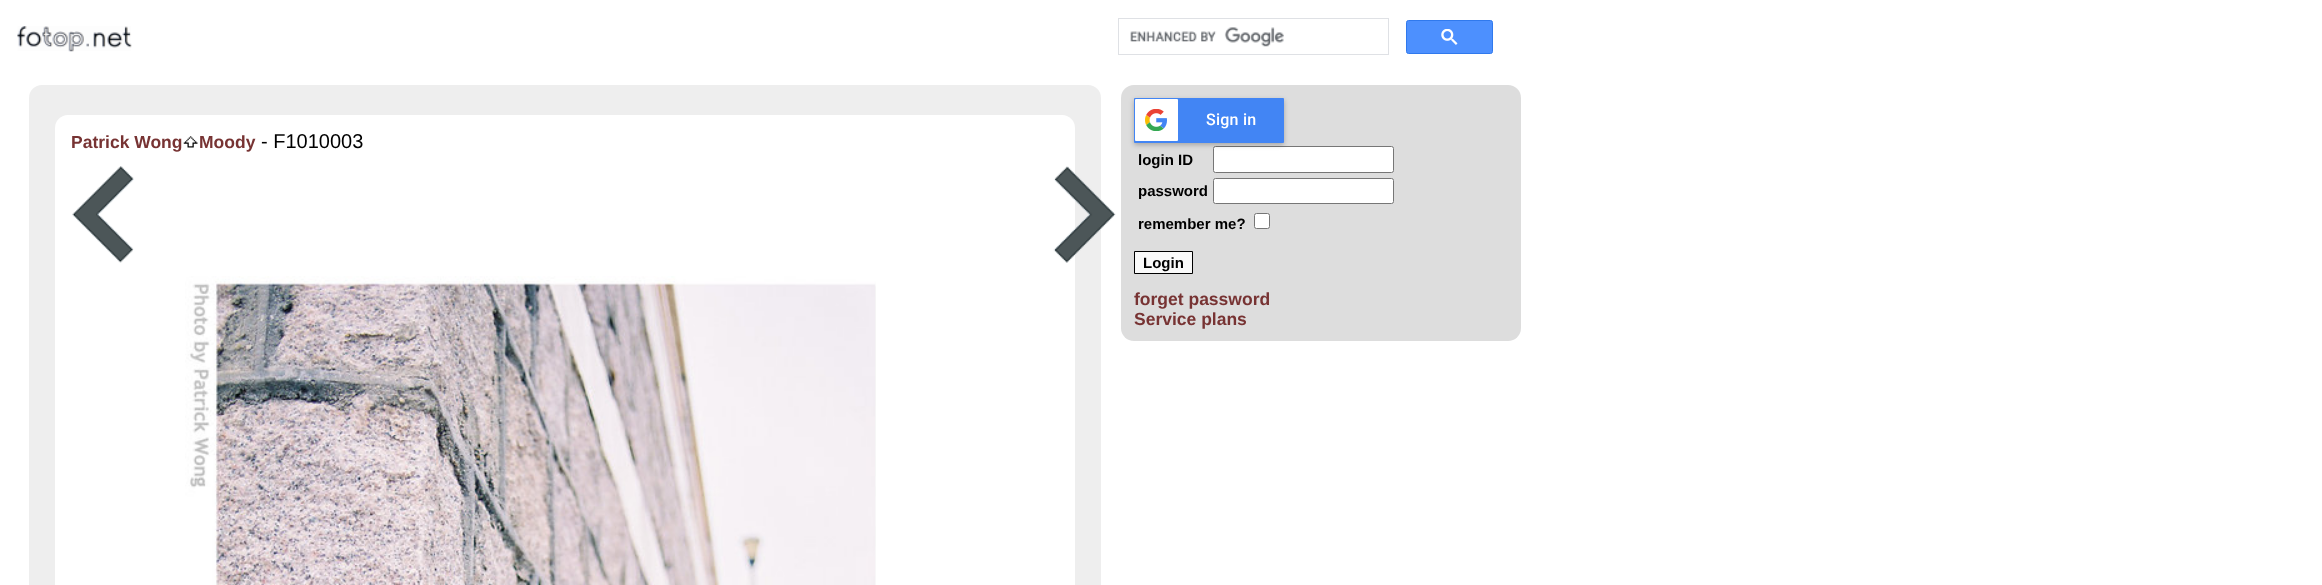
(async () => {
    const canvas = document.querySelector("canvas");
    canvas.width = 2322;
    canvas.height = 585;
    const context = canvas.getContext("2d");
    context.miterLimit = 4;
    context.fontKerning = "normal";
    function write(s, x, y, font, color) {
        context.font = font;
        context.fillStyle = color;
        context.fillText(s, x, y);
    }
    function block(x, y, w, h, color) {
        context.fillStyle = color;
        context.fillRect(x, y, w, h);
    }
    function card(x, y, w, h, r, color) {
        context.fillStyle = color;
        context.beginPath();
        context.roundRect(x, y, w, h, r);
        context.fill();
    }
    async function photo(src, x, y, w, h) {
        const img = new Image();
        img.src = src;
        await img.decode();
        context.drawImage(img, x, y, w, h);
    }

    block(0, 0, 2322, 585, "rgb(255, 255, 255)");
    await photo("media/1.png", 17, 26, 115, 26);
    context.strokeStyle = "rgb(223, 225, 229)";
    context.strokeRect(1118.5, 18.5, 270, 36);
    await photo("media/2.png", 1130, 27, 154, 20);
    context.fillStyle = "rgb(77, 144, 254)";
    context.beginPath();
    context.roundRect(1406.5, 20.5, 86, 33, 2);
    context.fill();
    context.strokeStyle = "rgb(48, 121, 237)";
    context.stroke();
    await photo("media/3.png", 1441, 29, 17, 16);
    card(29, 85, 1072, 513, 13, "rgb(238, 238, 238)");
    card(55, 115, 1020, 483, 13, "rgb(255, 255, 255)");
    write("Patrick Wong", 71, 148, "bold 17.5px Liberation Sans", "rgb(119, 51, 51)");
    await photo("media/4.png", 183, 136, 15, 12);
    write("Moody", 199, 148, "bold 17.5px Liberation Sans", "rgb(119, 51, 51)");
    write("- F1010003", 261, 148, "20px Liberation Sans", "rgb(0, 0, 0)");
    await photo("media/5.png", 72, 166, 62, 97);
    await photo("media/6.png", 1053, 166, 63, 97);
    await photo("media/7.png", 185, 276, 691, 309);
    card(1121, 85, 400, 256, 13, "rgb(221, 221, 221)");
    context.fillStyle = "rgb(255, 255, 255)";
    context.beginPath();
    context.roundRect(1213.5, 146.5, 180, 26, 2);
    context.fill();
    context.strokeStyle = "rgb(118, 118, 118)";
    context.stroke();
    context.fillStyle = "rgba(0, 0, 0, 0.25)";
    context.filter = "blur(2.5px)";
    context.beginPath();
    context.roundRect(1134, 100, 150, 45, 1);
    context.fill();
    context.filter = "none";
    card(1134, 98, 150, 45, 1, "rgb(66, 133, 244)");
    card(1135, 99, 43, 42, 1, "rgb(255, 255, 255)");
    await photo("media/8.png", 1145, 109, 22, 22);
    context.letterSpacing = "0.25px";
    write("Sign in", 1206, 125, "500 16px Roboto", "rgb(255, 255, 255)");
    context.letterSpacing = "0px";
    write("login ID", 1138, 165, "bold 15px Liberation Sans", "rgb(0, 0, 0)");
    write("password", 1138, 196, "bold 15px Liberation Sans", "rgb(0, 0, 0)");
    context.fillStyle = "rgb(255, 255, 255)";
    context.beginPath();
    context.roundRect(1213.5, 178.5, 180, 25, 2);
    context.fill();
    context.stroke();
    write("remember me?", 1138, 229, "bold 15px Liberation Sans", "rgb(0, 0, 0)");
    context.fillStyle = "rgb(255, 255, 255)";
    context.beginPath();
    context.roundRect(1254.5, 213.5, 15, 15, 2);
    context.fill();
    context.stroke();
    context.fillStyle = "rgb(250, 250, 250)";
    context.beginPath();
    context.rect(1134.5, 251.5, 58, 22);
    context.fill();
    context.strokeStyle = "rgb(0, 0, 0)";
    context.stroke();
    write("Login", 1143, 268, "bold 15px Liberation Sans", "rgb(0, 0, 0)");
    write("forget password", 1134, 305, "bold 17.5px Liberation Sans", "rgb(119, 51, 51)");
    write("Service plans", 1134, 325, "bold 17.5px Liberation Sans", "rgb(119, 51, 51)");
})();
